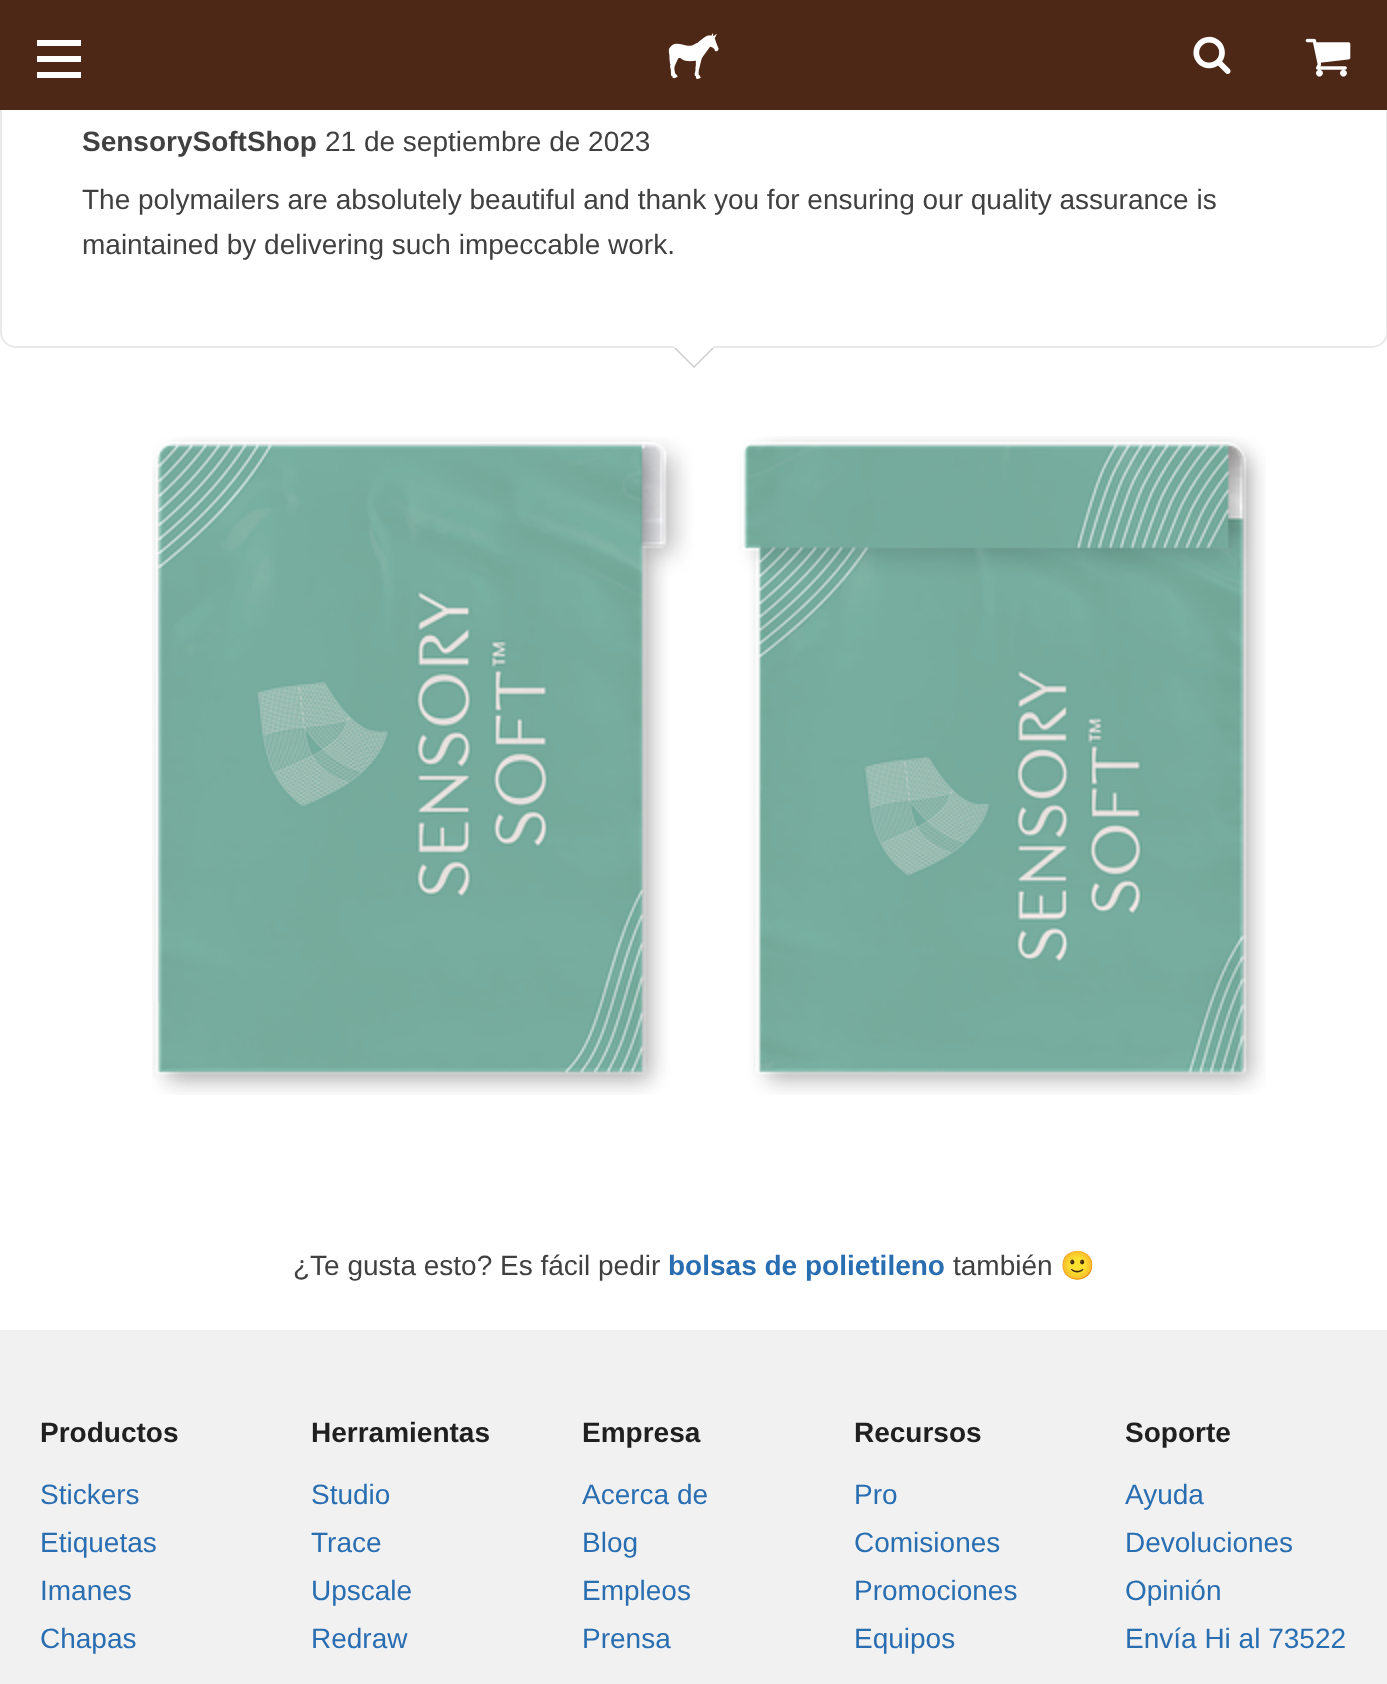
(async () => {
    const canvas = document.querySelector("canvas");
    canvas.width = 1387;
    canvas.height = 1684;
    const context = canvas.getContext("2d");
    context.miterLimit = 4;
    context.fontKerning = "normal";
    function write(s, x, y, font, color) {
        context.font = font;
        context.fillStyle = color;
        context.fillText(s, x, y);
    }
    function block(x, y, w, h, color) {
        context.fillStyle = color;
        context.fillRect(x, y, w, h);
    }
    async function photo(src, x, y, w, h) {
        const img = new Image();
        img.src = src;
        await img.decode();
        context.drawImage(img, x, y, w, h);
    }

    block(0, 0, 1387, 1684, "rgb(255, 255, 255)");
    context.beginPath();
    context.roundRect(1, -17, 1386, 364, 15);
    context.strokeStyle = "rgb(233, 233, 233)";
    context.lineWidth = 2;
    context.stroke();
    block(0, 0, 1387, 110, "rgb(78, 40, 23)");
    context.fillStyle = "rgb(255, 255, 255)";
    context.beginPath();
    context.moveTo(37, 40);
    context.lineTo(81, 40);
    context.lineTo(81, 46);
    context.lineTo(37, 46);
    context.closePath();
    context.moveTo(37, 56);
    context.lineTo(81, 56);
    context.lineTo(81, 62);
    context.lineTo(37, 62);
    context.closePath();
    context.moveTo(37, 72);
    context.lineTo(81, 72);
    context.lineTo(81, 78);
    context.lineTo(37, 78);
    context.closePath();
    context.fill();
    await photo("media/1.png", 668, 33, 51, 46);
    await photo("media/2.png", 1193, 36, 38, 38);
    await photo("media/3.png", 1305, 38, 46, 39);
    write("SensorySoftShop", 82, 151, "bold 28px Liberation Sans", "rgb(64, 64, 64)");
    write("21 de septiembre de 2023", 325, 151, "28px Liberation Sans", "rgb(64, 64, 64)");
    write("The polymailers are absolutely beautiful and thank you for ensuring our quality assurance is", 82, 209, "28px Liberation Sans", "rgb(64, 64, 64)");
    write("maintained by delivering such impeccable work.", 82, 254, "28px Liberation Sans", "rgb(64, 64, 64)");
    context.fillStyle = "rgb(204, 204, 204)";
    context.beginPath();
    context.moveTo(674, 348);
    context.lineTo(714, 348);
    context.lineTo(694, 368);
    context.closePath();
    context.fill();
    context.fillStyle = "rgb(255, 255, 255)";
    context.beginPath();
    context.moveTo(674, 346);
    context.lineTo(714, 346);
    context.lineTo(694, 366);
    context.closePath();
    context.fill();
    await photo("media/4.png", 152, 436, 1114, 659);
    write("¿Te gusta esto? Es fácil pedir", 293, 1275, "28px Liberation Sans", "rgb(64, 64, 64)");
    write("bolsas de polietileno", 668, 1275, "bold 28px Liberation Sans", "rgb(42, 110, 178)");
    write("también", 953, 1275, "28px Liberation Sans", "rgb(64, 64, 64)");
    write("🙂", 1060, 1275, "28px Noto Color Emoji", "rgb(64, 64, 64)");
    block(0, 1330, 1387, 354, "rgb(241, 241, 241)");
    write("Productos", 40, 1442, "bold 28px Liberation Sans", "rgb(32, 32, 32)");
    write("Stickers", 40, 1504, "28px Liberation Sans", "rgb(42, 110, 178)");
    write("Etiquetas", 40, 1552, "28px Liberation Sans", "rgb(42, 110, 178)");
    write("Imanes", 40, 1600, "28px Liberation Sans", "rgb(42, 110, 178)");
    write("Chapas", 40, 1648, "28px Liberation Sans", "rgb(42, 110, 178)");
    write("Herramientas", 311, 1442, "bold 28px Liberation Sans", "rgb(32, 32, 32)");
    write("Studio", 311, 1504, "28px Liberation Sans", "rgb(42, 110, 178)");
    write("Trace", 311, 1552, "28px Liberation Sans", "rgb(42, 110, 178)");
    write("Upscale", 311, 1600, "28px Liberation Sans", "rgb(42, 110, 178)");
    write("Redraw", 311, 1648, "28px Liberation Sans", "rgb(42, 110, 178)");
    write("Empresa", 582, 1442, "bold 28px Liberation Sans", "rgb(32, 32, 32)");
    write("Acerca de", 582, 1504, "28px Liberation Sans", "rgb(42, 110, 178)");
    write("Blog", 582, 1552, "28px Liberation Sans", "rgb(42, 110, 178)");
    write("Empleos", 582, 1600, "28px Liberation Sans", "rgb(42, 110, 178)");
    write("Prensa", 582, 1648, "28px Liberation Sans", "rgb(42, 110, 178)");
    write("Recursos", 854, 1442, "bold 28px Liberation Sans", "rgb(32, 32, 32)");
    write("Pro", 854, 1504, "28px Liberation Sans", "rgb(42, 110, 178)");
    write("Comisiones", 854, 1552, "28px Liberation Sans", "rgb(42, 110, 178)");
    write("Promociones", 854, 1600, "28px Liberation Sans", "rgb(42, 110, 178)");
    write("Equipos", 854, 1648, "28px Liberation Sans", "rgb(42, 110, 178)");
    write("Soporte", 1125, 1442, "bold 28px Liberation Sans", "rgb(32, 32, 32)");
    write("Ayuda", 1125, 1504, "28px Liberation Sans", "rgb(42, 110, 178)");
    write("Devoluciones", 1125, 1552, "28px Liberation Sans", "rgb(42, 110, 178)");
    write("Opinión", 1125, 1600, "28px Liberation Sans", "rgb(42, 110, 178)");
    write("Envía Hi al 73522", 1125, 1648, "28px Liberation Sans", "rgb(42, 110, 178)");
})();
